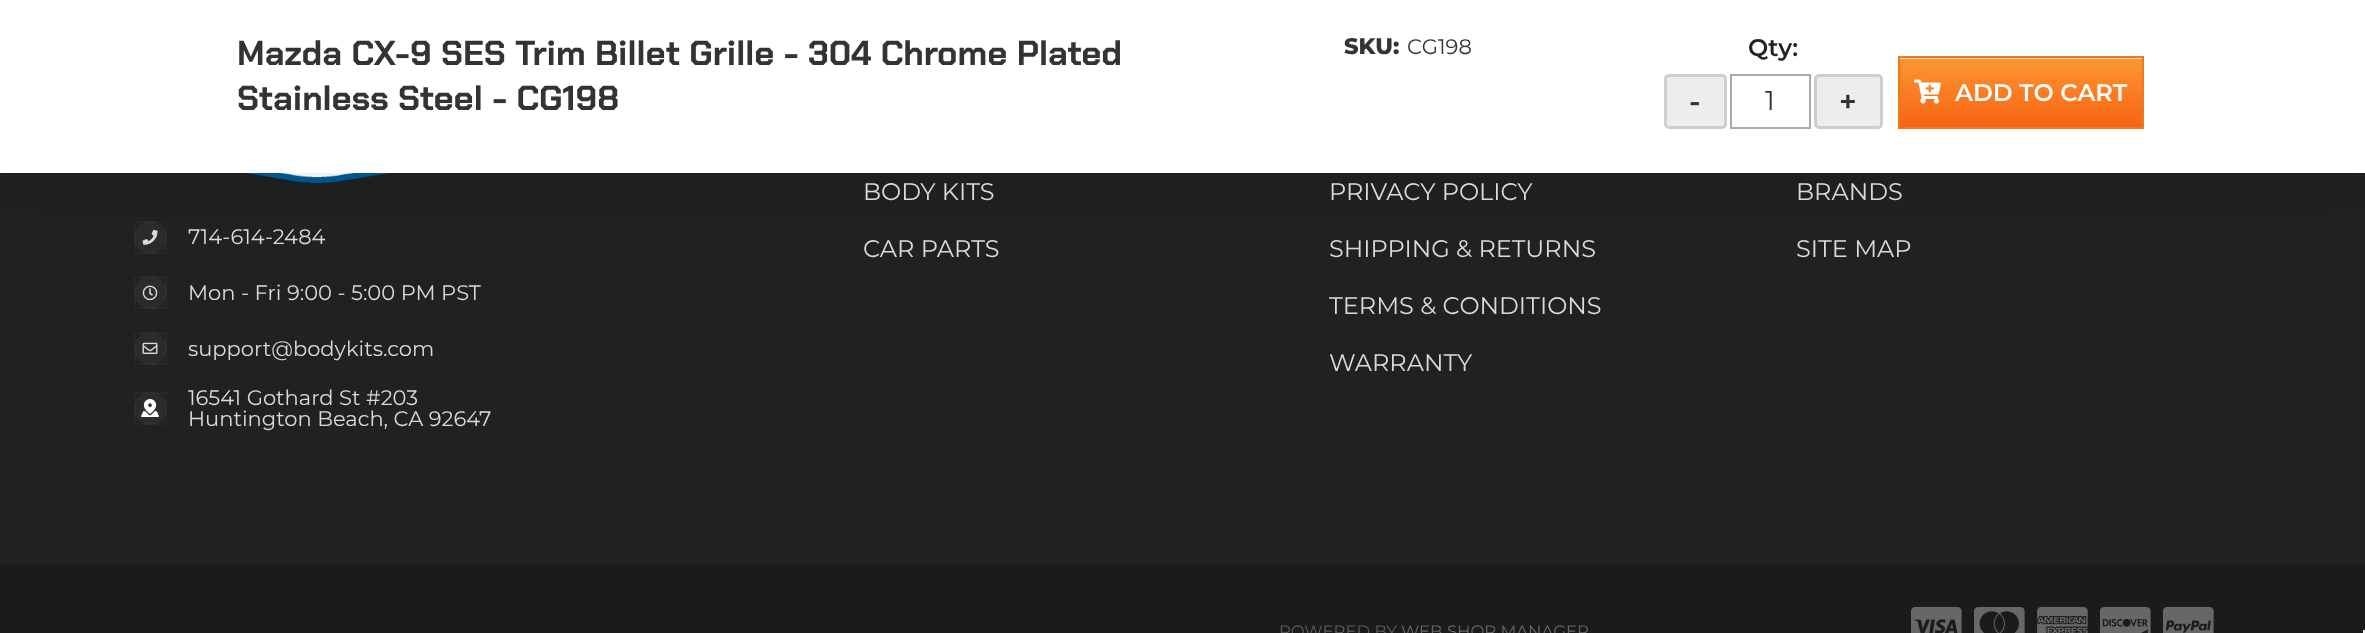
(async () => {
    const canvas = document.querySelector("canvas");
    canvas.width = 2365;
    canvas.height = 633;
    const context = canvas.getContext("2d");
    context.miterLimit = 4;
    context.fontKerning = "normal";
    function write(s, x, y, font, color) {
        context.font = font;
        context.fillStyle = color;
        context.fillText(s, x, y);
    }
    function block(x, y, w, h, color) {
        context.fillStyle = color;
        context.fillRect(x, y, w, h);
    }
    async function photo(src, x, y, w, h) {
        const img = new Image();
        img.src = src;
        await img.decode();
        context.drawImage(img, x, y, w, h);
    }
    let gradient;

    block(0, 0, 2365, 633, "rgb(32, 33, 33)");
    await photo("media/2.png", 244, 173, 148, 10);
    context.fillStyle = "rgb(43, 43, 43)";
    context.beginPath();
    context.arc(150.5, 237.5, 16.5, 0, Math.PI * 2);
    context.fill();
    context.strokeStyle = "rgba(255, 255, 255, 0.03)";
    context.lineWidth = 2;
    context.strokeRect(135, 222, 31, 31);
    await photo("media/3.png", 142, 229, 16, 16);
    context.fillStyle = "rgba(0, 0, 0, 0.19)";
    context.filter = "blur(27px)";
    context.beginPath();
    context.rect(12, 12, 2342, 149);
    context.fill();
    context.filter = "none";
    block(0, 0, 2365, 173, "rgb(255, 255, 255)");
    write("Mazda CX-9 SES Trim Billet Grille - 304 Chrome Plated", 237, 65, "bold 34.5px Chakra Petch", "rgb(51, 51, 51)");
    write("Stainless Steel - CG198", 237, 110, "bold 34.5px Chakra Petch", "rgb(51, 51, 51)");
    write("SKU:", 1344, 54, "100 22.5px 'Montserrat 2'", "rgb(51, 51, 51)");
    write("CG198", 1407, 54, "100 21px Montserrat", "rgb(51, 51, 51)");
    write("Qty:", 1748, 56, "100 24px 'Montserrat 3'", "rgb(34, 35, 37)");
    context.fillStyle = "rgb(237, 237, 237)";
    context.beginPath();
    context.roundRect(1665.5, 75.5, 60, 52, 3.5);
    context.fill();
    context.strokeStyle = "rgb(206, 206, 206)";
    context.lineWidth = 3;
    context.stroke();
    write("-", 1689, 112, "100 30px 'Montserrat 3'", "rgb(51, 51, 51)");
    context.strokeStyle = "rgb(170, 170, 170)";
    context.lineWidth = 2;
    context.strokeRect(1731, 75, 79, 53);
    write("1", 1765, 110, "100 27px Montserrat", "rgb(51, 51, 51)");
    context.fillStyle = "rgb(237, 237, 237)";
    context.beginPath();
    context.roundRect(1815.5, 75.5, 66, 52, 3.5);
    context.fill();
    context.strokeStyle = "rgb(206, 206, 206)";
    context.lineWidth = 3;
    context.stroke();
    write("+", 1839, 112, "100 30px 'Montserrat 3'", "rgb(51, 51, 51)");
    gradient = context.createLinearGradient(2021, 57, 2021, 128);
    gradient.addColorStop(0.01, "rgb(253, 151, 50)");
    gradient.addColorStop(1, "rgb(246, 99, 19)");
    context.fillStyle = gradient;
    context.fillRect(1900, 59, 242, 68);
    block(1899, 58, 243, 1, "rgb(254, 213, 173)");
    context.strokeStyle = "rgb(236, 122, 33)";
    context.lineWidth = 2;
    context.strokeRect(1899, 57, 244, 71);
    await photo("media/1.png", 1914, 79, 27, 25);
    write("ADD TO CART", 1955, 101, "100 24px 'Montserrat 3'", "rgb(255, 255, 255)");
    write("714-614-2484", 188, 244, "100 21px Montserrat", "rgb(218, 218, 218)");
    context.fillStyle = "rgb(43, 43, 43)";
    context.beginPath();
    context.arc(150.5, 292.5, 16.5, 0, Math.PI * 2);
    context.fill();
    context.strokeStyle = "rgba(255, 255, 255, 0.03)";
    context.strokeRect(135, 277, 31, 31);
    await photo("media/4.png", 142, 285, 16, 16);
    write("Mon - Fri 9:00 - 5:00 PM PST", 188, 300, "100 21px Montserrat", "rgb(218, 218, 218)");
    context.fillStyle = "rgb(43, 43, 43)";
    context.beginPath();
    context.arc(150.5, 348.5, 16.5, 0, Math.PI * 2);
    context.fill();
    context.strokeRect(135, 333, 31, 31);
    await photo("media/5.png", 142, 342, 16, 12);
    write("support@bodykits.com", 188, 356, "100 21px Montserrat", "rgb(218, 218, 218)");
    context.fillStyle = "rgb(43, 43, 43)";
    context.beginPath();
    context.arc(150.5, 408.5, 16.5, 0, Math.PI * 2);
    context.fill();
    context.strokeRect(135, 393, 31, 31);
    await photo("media/6.png", 141, 399, 18, 18);
    write("16541 Gothard St #203", 188, 405, "100 21px Montserrat", "rgb(218, 218, 218)");
    write("Huntington Beach, CA 92647", 188, 426, "100 21px Montserrat", "rgb(218, 218, 218)");
    write("BODY KITS", 863, 200, "100 24px Montserrat", "rgb(218, 218, 218)");
    write("CAR PARTS", 863, 257, "100 24px Montserrat", "rgb(218, 218, 218)");
    write("PRIVACY POLICY", 1329, 200, "100 24px Montserrat", "rgb(218, 218, 218)");
    write("SHIPPING & RETURNS", 1329, 257, "100 24px Montserrat", "rgb(218, 218, 218)");
    write("TERMS & CONDITIONS", 1329, 314, "100 24px Montserrat", "rgb(218, 218, 218)");
    write("WARRANTY", 1329, 371, "100 24px Montserrat", "rgb(218, 218, 218)");
    write("BRANDS", 1796, 200, "100 24px Montserrat", "rgb(218, 218, 218)");
    write("SITE MAP", 1796, 257, "100 24px Montserrat", "rgb(218, 218, 218)");
    block(0, 564, 2365, 69, "rgb(26, 27, 27)");
    write("POWERED BY", 1279, 637, "100 16.5px Montserrat", "rgb(93, 94, 94)");
    write("WEB SHOP MANAGER", 1401, 637, "100 16.5px Montserrat", "rgb(103, 103, 103)");
    await photo("media/7.png", 1911, 606, 51, 27);
    await photo("media/8.png", 1974, 607, 51, 26);
    await photo("media/9.png", 2037, 606, 51, 27);
    await photo("media/10.png", 2100, 606, 51, 27);
    await photo("media/11.png", 2163, 606, 51, 27);
    block(2363, 630, 2, 3, "rgb(245, 245, 245)");
})();
